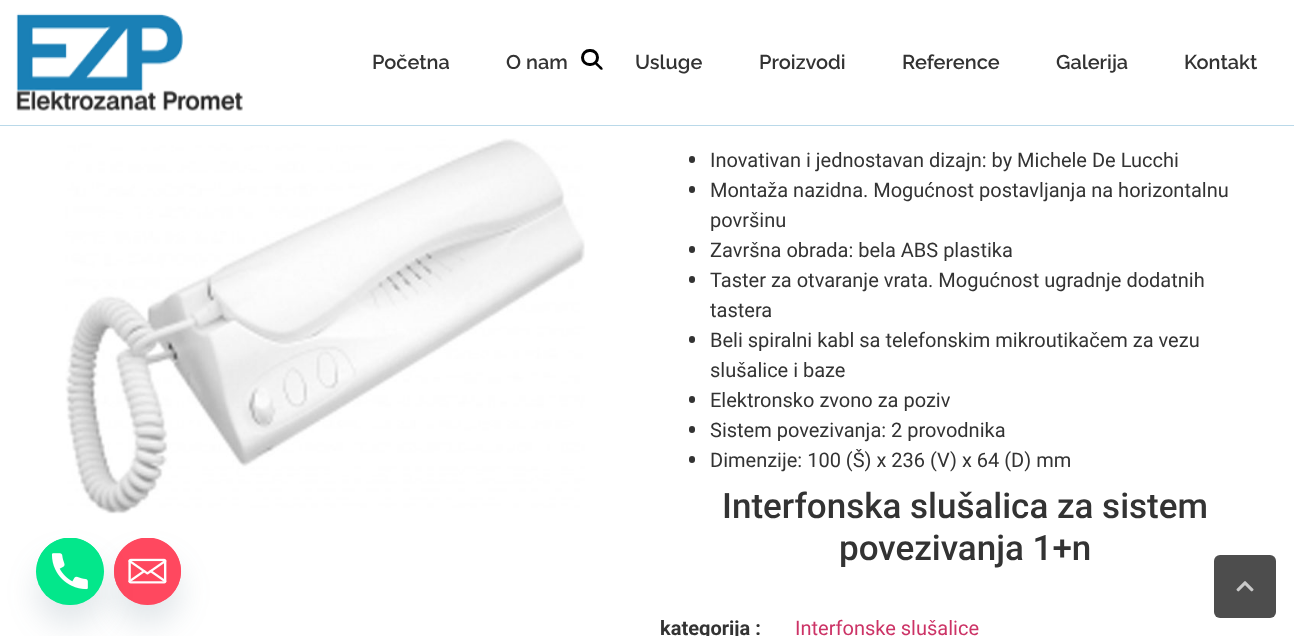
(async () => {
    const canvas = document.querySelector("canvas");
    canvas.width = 1294;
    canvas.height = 636;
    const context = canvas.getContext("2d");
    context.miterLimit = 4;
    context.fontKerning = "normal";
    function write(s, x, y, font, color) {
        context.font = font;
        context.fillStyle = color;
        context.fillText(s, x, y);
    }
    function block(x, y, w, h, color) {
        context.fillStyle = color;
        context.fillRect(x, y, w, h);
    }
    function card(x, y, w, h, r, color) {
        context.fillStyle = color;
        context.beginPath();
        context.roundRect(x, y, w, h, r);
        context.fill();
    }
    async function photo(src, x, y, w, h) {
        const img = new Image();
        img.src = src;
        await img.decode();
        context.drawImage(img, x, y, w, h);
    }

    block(0, 0, 1294, 636, "rgb(255, 255, 255)");
    block(0, 125, 1294, 1, "rgb(186, 217, 233)");
    await photo("media/1.png", 16, 13, 227, 98);
    write("Početna", 372, 69, "600 20px Raleway", "rgb(51, 51, 51)");
    write("O nam", 506, 69, "600 20px Raleway", "rgb(51, 51, 51)");
    write("Usluge", 635, 69, "600 20px Raleway", "rgb(51, 51, 51)");
    write("Proizvodi", 759, 69, "600 20px Raleway", "rgb(51, 51, 51)");
    write("Reference", 902, 69, "600 20px Raleway", "rgb(51, 51, 51)");
    write("Galerija", 1056, 69, "600 20px Raleway", "rgb(51, 51, 51)");
    write("Kontakt", 1184, 69, "600 20px Raleway", "rgb(51, 51, 51)");
    await photo("media/4.png", 65, 138, 520, 376);
    context.fillStyle = "rgba(73, 104, 126, 0.16)";
    context.filter = "blur(15px)";
    context.beginPath();
    context.roundRect(114, 558, 67, 67, 33.5);
    context.fill();
    context.filter = "none";
    context.fillStyle = "rgb(255, 72, 95)";
    context.beginPath();
    context.arc(147.5, 571.5, 33.5, 0, Math.PI * 2);
    context.fill();
    await photo("media/3.png", 114, 538, 67, 67);
    context.fillStyle = "rgba(73, 104, 126, 0.16)";
    context.filter = "blur(15px)";
    context.beginPath();
    context.roundRect(36, 558, 68, 67, 33.5);
    context.fill();
    context.filter = "none";
    card(36, 538, 68, 67, 33.5, "rgb(3, 231, 139)");
    await photo("media/2.png", 36, 538, 68, 67);
    context.beginPath();
    context.roundRect(582.5, 50.5, 15, 14, 7);
    context.strokeStyle = "rgb(0, 0, 0)";
    context.lineWidth = 3;
    context.stroke();
    context.fillStyle = "rgb(0, 0, 0)";
    context.beginPath();
    context.moveTo(595, 62.5);
    context.bezierCurveTo(596.5, 61, 599, 64.5, 599.5, 65);
    context.bezierCurveTo(600.5, 66, 603.5, 68, 602.5, 69.5);
    context.bezierCurveTo(601, 71, 598.5, 67.5, 598, 67);
    context.bezierCurveTo(597, 66, 594, 64, 595, 62.5);
    context.closePath();
    context.fill();
    card(689, 156, 6, 7, 3, "rgb(51, 51, 51)");
    write("Inovativan i jednostavan dizajn: by Michele De Lucchi", 710, 167, "20px Roboto", "rgb(51, 51, 51)");
    card(689, 186, 6, 7, 3, "rgb(51, 51, 51)");
    write("Montaža nazidna. Mogućnost postavljanja na horizontalnu", 710, 197, "20px Roboto", "rgb(51, 51, 51)");
    write("površinu", 710, 227, "20px Roboto", "rgb(51, 51, 51)");
    card(689, 246, 6, 7, 3, "rgb(51, 51, 51)");
    write("Završna obrada: bela ABS plastika", 710, 257, "20px Roboto", "rgb(51, 51, 51)");
    card(689, 276, 6, 7, 3, "rgb(51, 51, 51)");
    write("Taster za otvaranje vrata. Mogućnost ugradnje dodatnih", 710, 287, "20px Roboto", "rgb(51, 51, 51)");
    write("tastera", 710, 317, "20px Roboto", "rgb(51, 51, 51)");
    card(689, 336, 6, 7, 3, "rgb(51, 51, 51)");
    write("Beli spiralni kabl sa telefonskim mikroutikačem za vezu", 710, 347, "20px Roboto", "rgb(51, 51, 51)");
    write("slušalice i baze", 710, 377, "20px Roboto", "rgb(51, 51, 51)");
    card(689, 396, 6, 7, 3, "rgb(51, 51, 51)");
    write("Elektronsko zvono za poziv", 710, 407, "20px Roboto", "rgb(51, 51, 51)");
    card(689, 426, 6, 7, 3, "rgb(51, 51, 51)");
    write("Sistem povezivanja: 2 provodnika", 710, 437, "20px Roboto", "rgb(51, 51, 51)");
    card(689, 456, 6, 7, 3, "rgb(51, 51, 51)");
    write("Dimenzije: 100 (Š) x 236 (V) x 64 (D) mm", 710, 467, "20px Roboto", "rgb(51, 51, 51)");
    write("Interfonska slušalica za sistem", 722, 518, "500 35px Roboto", "rgb(51, 51, 51)");
    write("povezivanja 1+n", 839, 560, "500 35px Roboto", "rgb(51, 51, 51)");
    write("kategorija :", 660, 635, "bold 20px Roboto", "rgb(51, 51, 51)");
    write("Interfonske slušalice", 795, 635, "20px Roboto", "rgb(204, 51, 102)");
    card(1214, 555, 62, 63, 6, "rgb(77, 77, 77)");
    await photo("media/5.png", 1236, 581, 18, 11);
})();
